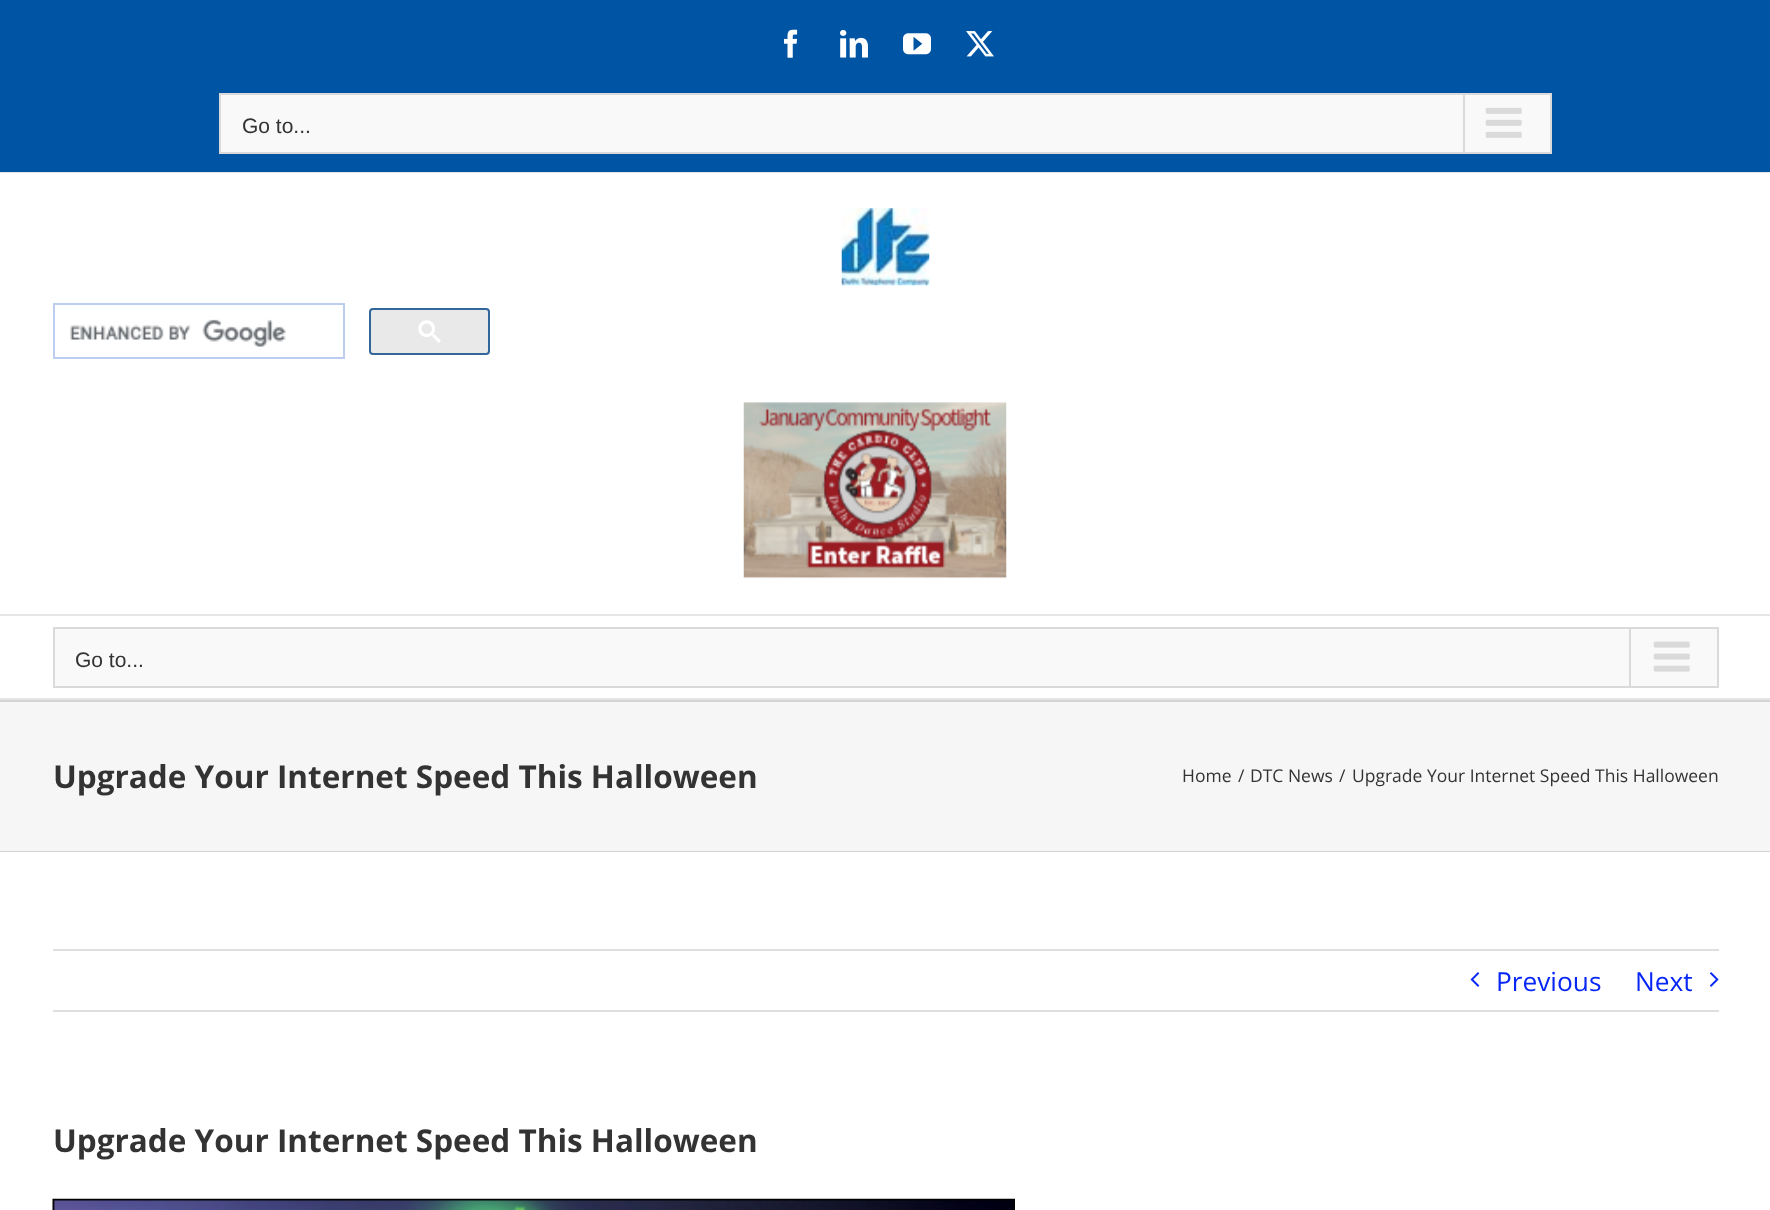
(async () => {
    const canvas = document.querySelector("canvas");
    canvas.width = 1770;
    canvas.height = 1210;
    const context = canvas.getContext("2d");
    context.miterLimit = 4;
    context.fontKerning = "normal";
    function write(s, x, y, font, color) {
        context.font = font;
        context.fillStyle = color;
        context.fillText(s, x, y);
    }
    function block(x, y, w, h, color) {
        context.fillStyle = color;
        context.fillRect(x, y, w, h);
    }
    async function photo(src, x, y, w, h) {
        const img = new Image();
        img.src = src;
        await img.decode();
        context.drawImage(img, x, y, w, h);
    }

    block(0, 0, 1770, 1210, "rgb(246, 246, 246)");
    block(0, 0, 1770, 172, "rgb(0, 84, 164)");
    block(0, 172, 1770, 1, "rgb(229, 229, 229)");
    await photo("media/1.png", 784, 29, 14, 29);
    await photo("media/2.png", 840, 30, 28, 28);
    await photo("media/3.png", 903, 33, 28, 22);
    await photo("media/4.png", 966, 31, 28, 26);
    context.fillStyle = "rgb(249, 249, 249)";
    context.beginPath();
    context.rect(220, 94, 1331, 59);
    context.fill();
    context.strokeStyle = "rgb(218, 218, 218)";
    context.lineWidth = 2;
    context.stroke();
    write("Go to...", 242, 133, "21px Liberation Sans", "rgb(51, 51, 51)");
    block(1463, 95, 2, 57, "rgb(218, 218, 218)");
    await photo("media/5.png", 1485, 107, 37, 31);
    block(0, 173, 1770, 441, "rgb(255, 255, 255)");
    block(0, 614, 1770, 2, "rgb(229, 229, 229)");
    await photo("media/6.png", 841, 208, 89, 78);
    context.strokeStyle = "rgb(188, 205, 240)";
    context.strokeRect(54, 304, 290, 54);
    await photo("media/7.png", 70, 319, 216, 28);
    context.fillStyle = "rgb(233, 233, 233)";
    context.beginPath();
    context.roundRect(370, 309, 119, 45, 3);
    context.fill();
    context.strokeStyle = "rgb(51, 102, 153)";
    context.stroke();
    await photo("media/8.png", 418, 320, 23, 23);
    await photo("media/9.png", 743, 402, 264, 177);
    block(0, 616, 1770, 82, "rgb(255, 255, 255)");
    block(0, 698, 1770, 2, "rgb(229, 229, 229)");
    context.fillStyle = "rgb(249, 249, 249)";
    context.beginPath();
    context.rect(54, 628, 1664, 59);
    context.fill();
    context.strokeStyle = "rgb(218, 218, 218)";
    context.stroke();
    write("Go to...", 75, 667, "21px Liberation Sans", "rgb(51, 51, 51)");
    block(1629, 628, 2, 58, "rgb(218, 218, 218)");
    await photo("media/10.png", 1653, 641, 37, 31);
    block(0, 700, 1770, 2, "rgb(210, 211, 212)");
    block(0, 851, 1770, 1, "rgb(210, 211, 212)");
    write("Upgrade Your Internet Speed This Halloween", 53, 788, "bold 31.5px Open Sans", "rgb(51, 51, 51)");
    write("Home", 1182, 782, "17.5px Open Sans", "rgb(51, 51, 51)");
    write("/", 1238, 782, "17.5px Open Sans", "rgb(51, 51, 51)");
    write("DTC News", 1250, 782, "17.5px Open Sans", "rgb(51, 51, 51)");
    write("/", 1339, 782, "17.5px Open Sans", "rgb(51, 51, 51)");
    write("Upgrade Your Internet Speed This Halloween", 1352, 782, "17.5px Open Sans", "rgb(51, 51, 51)");
    block(0, 852, 1770, 358, "rgb(255, 255, 255)");
    block(53, 949, 1666, 2, "rgb(224, 222, 222)");
    block(53, 1010, 1666, 2, "rgb(224, 222, 222)");
    await photo("media/11.png", 1470, 972, 10, 15);
    write("Previous", 1496, 991, "26.25px Open Sans", "rgb(7, 39, 247)");
    write("Next", 1635, 991, "26.25px Open Sans", "rgb(7, 39, 247)");
    await photo("media/12.png", 1710, 972, 9, 15);
    write("Upgrade Your Internet Speed This Halloween", 53, 1152, "bold 31.5px Open Sans", "rgb(51, 51, 51)");
    await photo("media/13.png", 52, 1198, 963, 12);
})();
